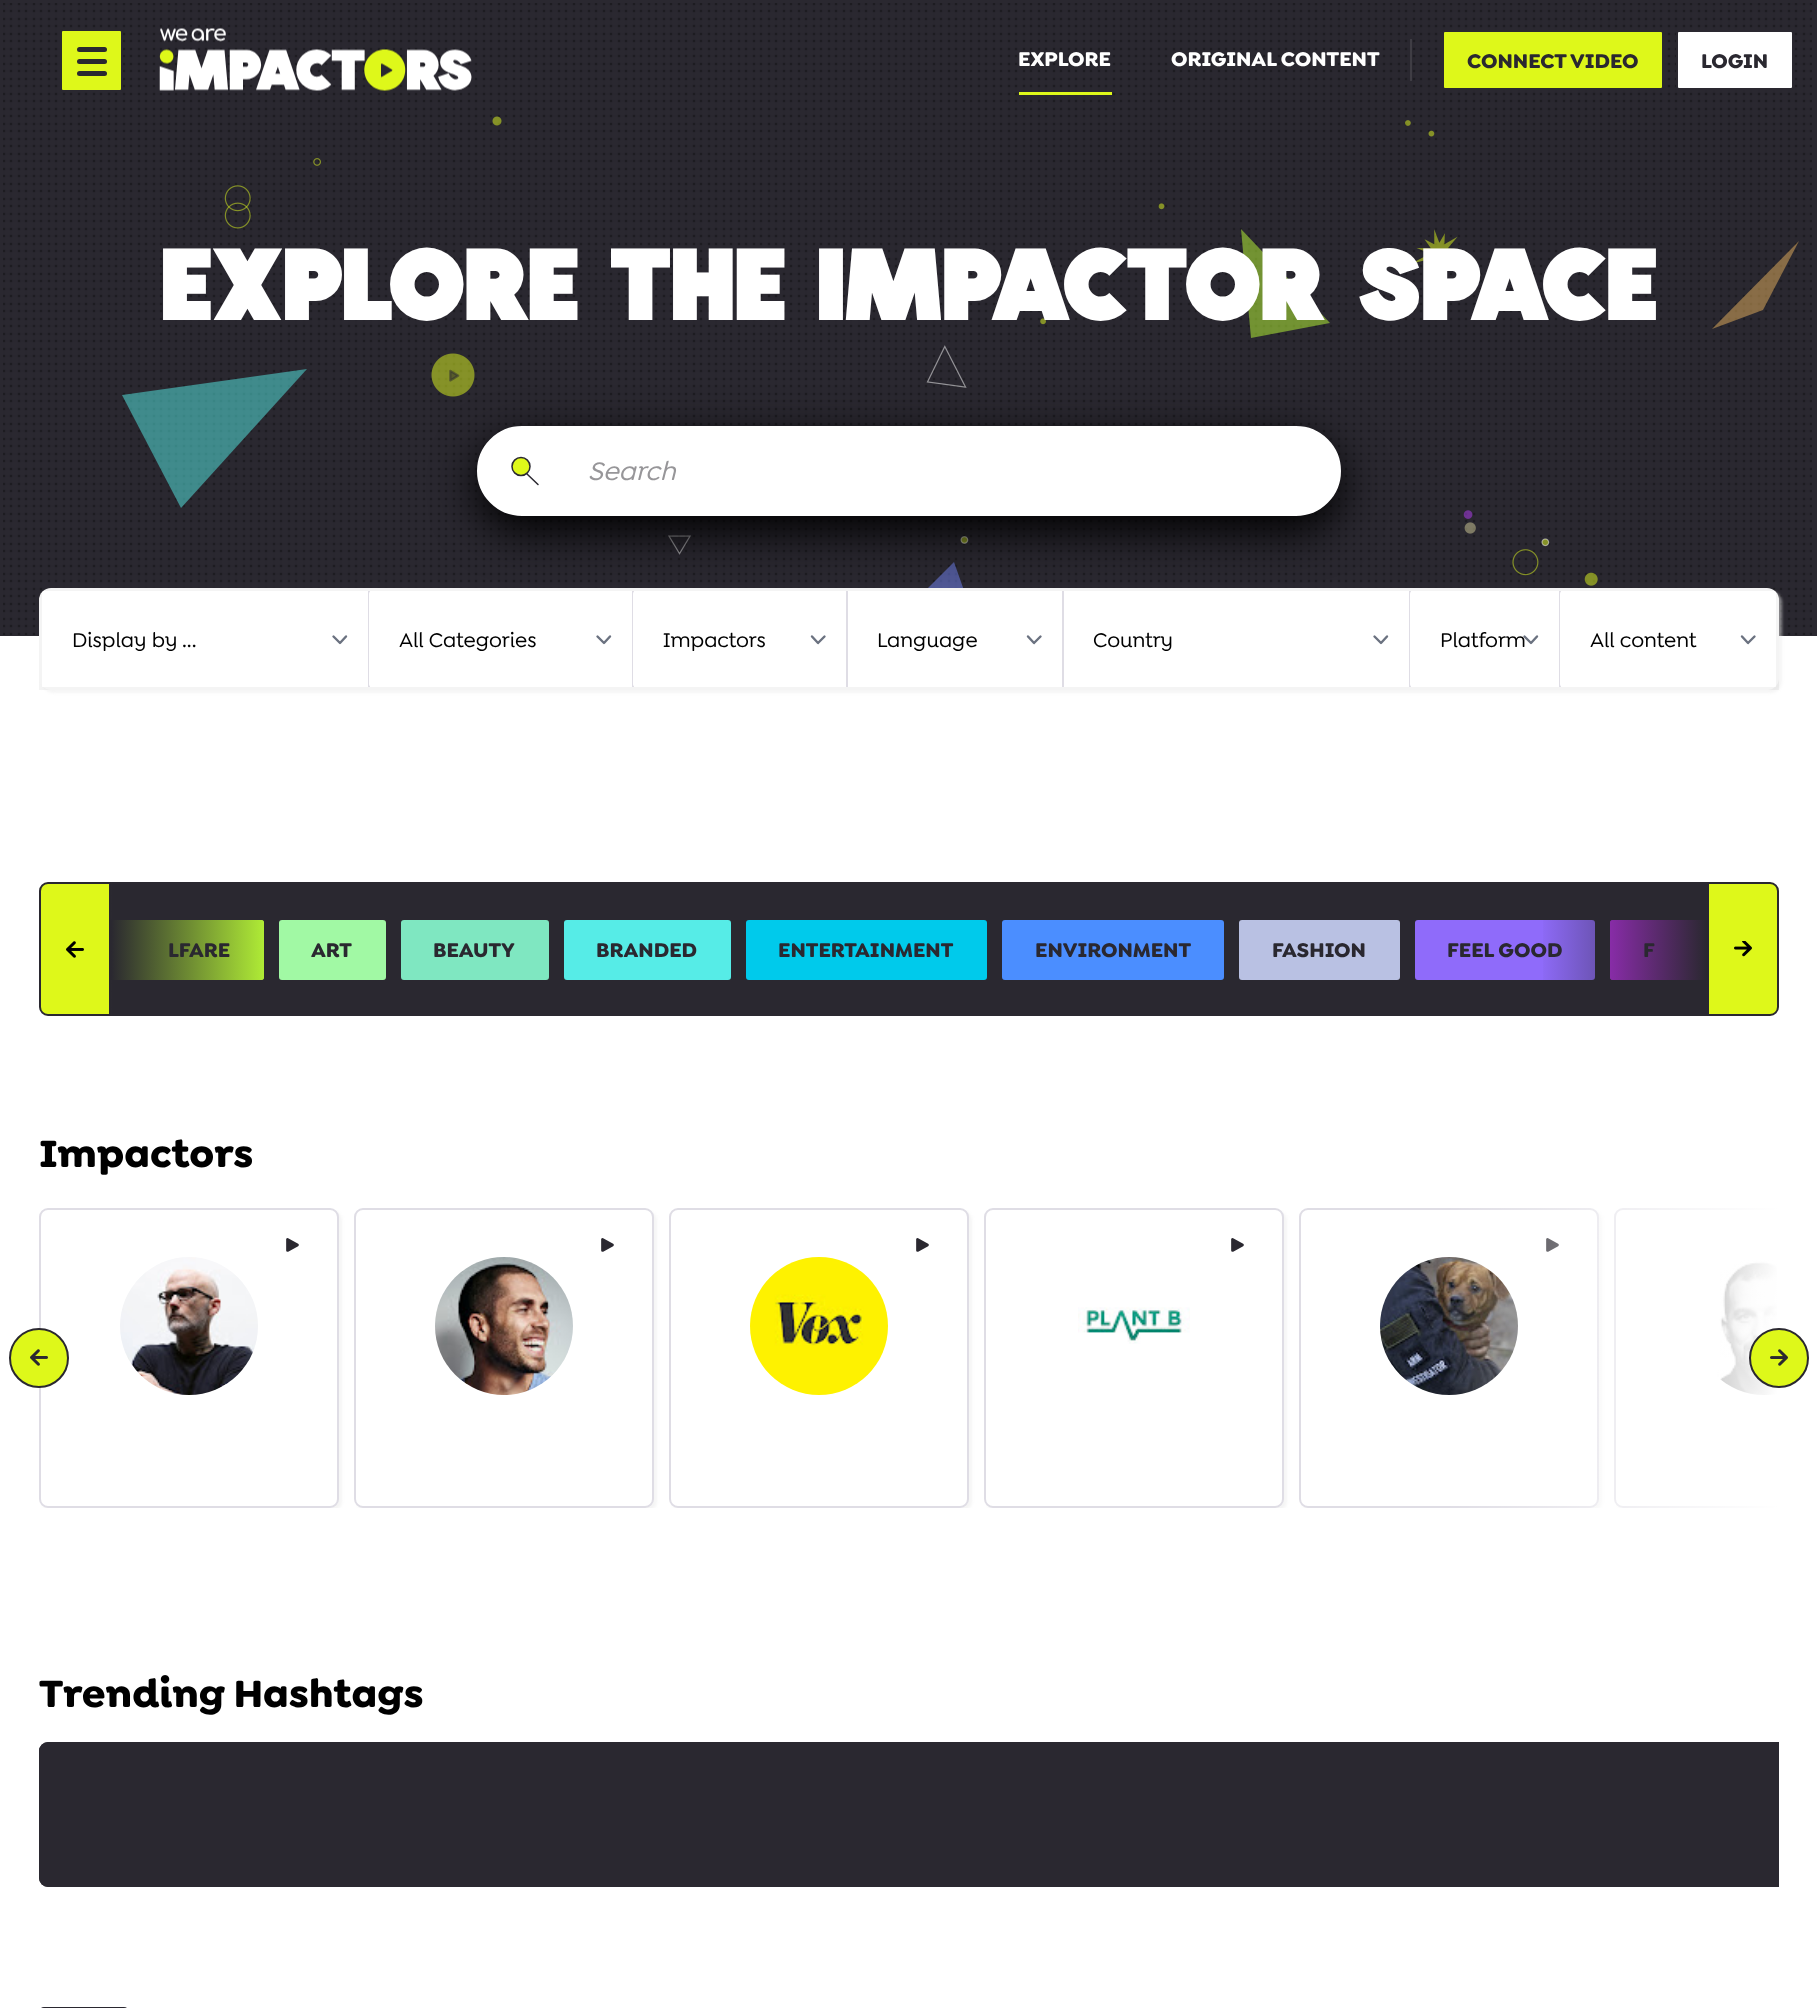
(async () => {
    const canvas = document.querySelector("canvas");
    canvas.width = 1817;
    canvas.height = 2008;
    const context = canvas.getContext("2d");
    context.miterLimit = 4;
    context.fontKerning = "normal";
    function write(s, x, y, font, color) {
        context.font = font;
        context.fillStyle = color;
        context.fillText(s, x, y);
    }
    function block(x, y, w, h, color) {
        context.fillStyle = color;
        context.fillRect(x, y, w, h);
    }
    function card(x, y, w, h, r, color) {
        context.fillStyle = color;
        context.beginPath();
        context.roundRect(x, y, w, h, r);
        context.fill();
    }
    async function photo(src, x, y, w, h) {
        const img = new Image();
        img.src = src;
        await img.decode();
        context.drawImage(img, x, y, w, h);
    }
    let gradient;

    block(0, 0, 1817, 2008, "rgb(255, 255, 255)");
    block(0, 0, 1817, 636, "rgb(42, 40, 48)");
    await photo("media/2.png", 3, 3, 1809, 632);
    context.fillStyle = "rgb(222, 248, 26)";
    context.beginPath();
    context.roundRect(61, 30, 61, 61, 2);
    context.fill();
    context.strokeStyle = "rgb(42, 40, 48)";
    context.lineWidth = 2;
    context.stroke();
    card(77, 47, 30, 5, 2.5, "rgb(42, 40, 48)");
    card(77, 59, 30, 5, 2.5, "rgb(42, 40, 48)");
    card(77, 71, 30, 5, 2.5, "rgb(42, 40, 48)");
    await photo("media/1.png", 159, 28, 313, 63);
    block(1019, 92, 93, 3, "rgb(222, 248, 26)");
    write("EXPLORE", 1018, 66, "bold 21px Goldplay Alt", "rgb(255, 255, 255)");
    write("ORIGINAL CONTENT", 1171, 66, "bold 21px Goldplay Alt", "rgb(255, 255, 255)");
    block(1410, 39, 2, 42, "rgb(63, 61, 68)");
    context.fillStyle = "rgb(222, 248, 26)";
    context.beginPath();
    context.roundRect(1443, 31, 220, 58, 2);
    context.fill();
    context.stroke();
    write("CONNECT VIDEO", 1467, 68, "bold 21px Goldplay Alt", "rgb(42, 40, 48)");
    context.fillStyle = "rgb(255, 255, 255)";
    context.beginPath();
    context.roundRect(1677, 31, 116, 58, 2);
    context.fill();
    context.stroke();
    write("LOGIN", 1701, 68, "bold 21px Goldplay Alt", "rgb(42, 40, 48)");
    await photo("media/3.png", 313, 116, 1285, 470);
    await photo("media/4.png", 224, 185, 1315, 391);
    context.fillStyle = "rgba(86, 237, 231, 0.5)";
    context.beginPath();
    context.moveTo(307, 369);
    context.lineTo(181, 508);
    context.lineTo(122, 395);
    context.closePath();
    context.fill("evenodd");
    context.fillStyle = "rgba(231, 177, 94, 0.5)";
    context.beginPath();
    context.moveTo(1712, 329);
    context.lineTo(1763, 310);
    context.lineTo(1799, 241);
    context.closePath();
    context.fill("evenodd");
    context.fillStyle = "rgba(115, 134, 247, 0.5)";
    context.beginPath();
    context.moveTo(954, 562);
    context.lineTo(980, 636);
    context.lineTo(903, 613);
    context.closePath();
    context.fill("evenodd");
    context.fillStyle = "rgba(188, 254, 54, 0.5)";
    context.beginPath();
    context.moveTo(1251, 338);
    context.lineTo(1241, 229);
    context.lineTo(1330, 323);
    context.closePath();
    context.fill("evenodd");
    write("EXPLORE THE IMPACTOR SPACE", 161, 320, "102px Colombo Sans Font", "rgb(255, 255, 255)");
    context.fillStyle = "rgb(0, 0, 0)";
    context.filter = "blur(22.5px)";
    context.beginPath();
    context.roundRect(477, 441, 864, 90, 45);
    context.fill();
    context.filter = "none";
    context.fillStyle = "rgb(255, 255, 255)";
    context.beginPath();
    context.roundRect(478.5, 427.5, 861, 87, 43.5);
    context.fill();
    context.strokeStyle = "rgb(255, 255, 255)";
    context.lineWidth = 3;
    context.stroke();
    context.fillStyle = "rgb(222, 248, 26)";
    context.beginPath();
    context.arc(521, 466.5, 9, 0, Math.PI * 2);
    context.fill();
    context.strokeStyle = "rgb(42, 40, 48)";
    context.lineWidth = 1.5;
    context.stroke();
    context.beginPath();
    context.moveTo(527, 474);
    context.lineTo(538, 484.5);
    context.lineCap = "round";
    context.lineJoin = "round";
    context.stroke();
    write("Search", 588, 480, "italic 500 27px Goldplay Alt", "rgb(151, 150, 153)");
    context.fillStyle = "rgba(235, 235, 235, 0.5)";
    context.filter = "blur(1.5px)";
    context.beginPath();
    context.roundRect(42, 591, 1740, 102, 12);
    context.fill();
    context.filter = "none";
    card(39, 588, 1740, 102, 12, "rgb(255, 255, 255)");
    context.strokeStyle = "rgba(42, 40, 48, 0.05)";
    context.lineWidth = 3;
    context.lineJoin = "miter";
    context.strokeRect(40.5, 589.5, 1737, 99);
    card(42, 591, 326, 96, 3, "rgb(255, 255, 255)");
    context.beginPath();
    context.moveTo(333.5, 636.5);
    context.lineTo(340, 643);
    context.lineTo(346, 636.5);
    context.strokeStyle = "rgb(107, 114, 128)";
    context.lineWidth = 2.4;
    context.lineJoin = "round";
    context.stroke();
    write("Display by ...", 72, 647, "500 21px Goldplay Alt", "rgb(0, 0, 0)");
    block(368, 591, 2, 96, "rgb(223, 221, 229)");
    card(369, 591, 263, 96, 3, "rgb(255, 255, 255)");
    context.beginPath();
    context.moveTo(597.5, 636.5);
    context.lineTo(604, 643);
    context.lineTo(610, 636.5);
    context.stroke();
    write("All Categories", 399, 647, "500 21px Goldplay Alt", "rgb(0, 0, 0)");
    block(632, 591, 2, 96, "rgb(223, 221, 229)");
    card(633, 591, 213, 96, 3, "rgb(255, 255, 255)");
    context.beginPath();
    context.moveTo(812, 636.5);
    context.lineTo(818, 643);
    context.lineTo(824.5, 636.5);
    context.stroke();
    write("Impactors", 663, 647, "500 21px Goldplay Alt", "rgb(0, 0, 0)");
    block(846, 591, 2, 96, "rgb(223, 221, 229)");
    context.beginPath();
    context.moveTo(1028, 636.5);
    context.lineTo(1034, 643);
    context.lineTo(1040.5, 636.5);
    context.stroke();
    write("Language", 877, 647, "500 21px Goldplay Alt", "rgb(0, 0, 0)");
    block(1062, 591, 2, 96, "rgb(223, 221, 229)");
    context.beginPath();
    context.moveTo(1374.5, 636.5);
    context.lineTo(1381, 643);
    context.lineTo(1387, 636.5);
    context.stroke();
    write("Country", 1093, 647, "500 21px Goldplay Alt", "rgb(0, 0, 0)");
    block(1409, 591, 2, 96, "rgb(223, 221, 229)");
    card(1410, 591, 149, 96, 3, "rgb(255, 255, 255)");
    context.beginPath();
    context.moveTo(1524.5, 636.5);
    context.lineTo(1531, 643);
    context.lineTo(1537, 636.5);
    context.stroke();
    write("Platform", 1440, 647, "500 21px Goldplay Alt", "rgb(0, 0, 0)");
    block(1559, 591, 2, 96, "rgb(223, 221, 229)");
    card(1560, 591, 216, 96, 3, "rgb(255, 255, 255)");
    context.beginPath();
    context.moveTo(1742, 636.5);
    context.lineTo(1748, 643);
    context.lineTo(1754.5, 636.5);
    context.stroke();
    write("All content", 1590, 647, "500 21px Goldplay Alt", "rgb(0, 0, 0)");
    context.fillStyle = "rgb(222, 248, 26)";
    context.beginPath();
    context.roundRect(40, 883, 70, 132, [8, 0, 0, 8]);
    context.fill();
    context.strokeStyle = "rgb(42, 40, 48)";
    context.lineWidth = 2;
    context.lineJoin = "miter";
    context.stroke();
    await photo("media/5.png", 66, 941, 18, 17);
    block(112, 882, 1594, 134, "rgb(42, 40, 48)");
    context.fillStyle = "rgb(188, 254, 54)";
    context.beginPath();
    context.roundRect(111, 920, 153, 60, [0, 3, 3, 0]);
    context.fill();
    context.save();
    context.beginPath();
    context.rect(111, 894, 1596, 86);
    context.clip();
    context.beginPath();
    context.roundRect(16.5, 921.5, 246, 57, 1.5);
    context.strokeStyle = "rgb(188, 254, 54)";
    context.lineWidth = 3;
    context.stroke();
    context.restore();
    write("LFARE", 168, 957, "bold 21px Goldplay Alt", "rgb(42, 40, 48)");
    gradient = context.createLinearGradient(279, 949, 111, 949);
    gradient.addColorStop(0, "rgba(42, 40, 48, 0)");
    gradient.addColorStop(1, "rgb(42, 40, 48)");
    context.fillStyle = gradient;
    context.fillRect(111, 882, 153, 134);
    context.fillStyle = "rgb(143, 107, 250)";
    context.beginPath();
    context.roundRect(1416.5, 921.5, 177, 57, 1.5);
    context.fill();
    context.strokeStyle = "rgb(143, 107, 250)";
    context.lineWidth = 3;
    context.stroke();
    write("FEEL GOOD", 1447, 957, "bold 21px Goldplay Alt", "rgb(42, 40, 48)");
    context.fillStyle = "rgb(204, 47, 254)";
    context.beginPath();
    context.roundRect(1610, 920, 97, 60, [3, 0, 0, 3]);
    context.fill();
    context.fillStyle = "rgb(222, 248, 26)";
    context.beginPath();
    context.roundRect(1708, 883, 70, 132, [0, 8, 8, 0]);
    context.fill();
    context.strokeStyle = "rgb(42, 40, 48)";
    context.lineWidth = 2;
    context.stroke();
    context.save();
    context.beginPath();
    context.rect(111, 894, 1596, 86);
    context.clip();
    context.beginPath();
    context.roundRect(1611.5, 921.5, 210, 57, 1.5);
    context.strokeStyle = "rgb(204, 47, 254)";
    context.lineWidth = 3;
    context.stroke();
    context.restore();
    write("F", 1643, 957, "bold 21px Goldplay Alt", "rgb(42, 40, 48)");
    gradient = context.createLinearGradient(1539, 949, 1707, 949);
    gradient.addColorStop(0, "rgba(42, 40, 48, 0)");
    gradient.addColorStop(1, "rgb(42, 40, 48)");
    context.fillStyle = gradient;
    context.fillRect(1543, 882, 164, 134);
    context.fillStyle = "rgb(161, 249, 164)";
    context.beginPath();
    context.roundRect(280.5, 921.5, 104, 57, 1.5);
    context.fill();
    context.strokeStyle = "rgb(161, 249, 164)";
    context.lineWidth = 3;
    context.stroke();
    write("ART", 311, 957, "bold 21px Goldplay Alt", "rgb(42, 40, 48)");
    context.fillStyle = "rgb(127, 231, 193)";
    context.beginPath();
    context.roundRect(402.5, 921.5, 145, 57, 1.5);
    context.fill();
    context.strokeStyle = "rgb(127, 231, 193)";
    context.stroke();
    write("BEAUTY", 433, 957, "bold 21px Goldplay Alt", "rgb(42, 40, 48)");
    context.fillStyle = "rgb(86, 236, 231)";
    context.beginPath();
    context.roundRect(565.5, 921.5, 164, 57, 1.5);
    context.fill();
    context.strokeStyle = "rgb(86, 236, 231)";
    context.stroke();
    write("BRANDED", 596, 957, "bold 21px Goldplay Alt", "rgb(42, 40, 48)");
    context.fillStyle = "rgb(0, 202, 235)";
    context.beginPath();
    context.roundRect(747.5, 921.5, 238, 57, 1.5);
    context.fill();
    context.strokeStyle = "rgb(0, 202, 235)";
    context.stroke();
    write("ENTERTAINMENT", 778, 957, "bold 21px Goldplay Alt", "rgb(42, 40, 48)");
    context.fillStyle = "rgb(75, 142, 255)";
    context.beginPath();
    context.roundRect(1003.5, 921.5, 219, 57, 1.5);
    context.fill();
    context.strokeStyle = "rgb(75, 142, 255)";
    context.stroke();
    write("ENVIRONMENT", 1035, 957, "bold 21px Goldplay Alt", "rgb(42, 40, 48)");
    context.fillStyle = "rgb(185, 193, 227)";
    context.beginPath();
    context.roundRect(1240.5, 921.5, 158, 57, 1.5);
    context.fill();
    context.strokeStyle = "rgb(185, 193, 227)";
    context.stroke();
    write("FASHION", 1272, 957, "bold 21px Goldplay Alt", "rgb(42, 40, 48)");
    await photo("media/6.png", 1734, 941, 18, 16);
    write("Impactors", 39, 1167, "bold 40.5px Goldplay Alt", "rgb(0, 0, 0)");
    context.save();
    context.beginPath();
    context.rect(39, 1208, 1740, 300);
    context.clip();
    context.fillStyle = "rgba(235, 235, 235, 0.5)";
    context.filter = "blur(1.5px)";
    context.beginPath();
    context.roundRect(42, 1211, 300, 300, 9);
    context.fill();
    context.filter = "none";
    context.restore();
    context.fillStyle = "rgb(255, 255, 255)";
    context.beginPath();
    context.roundRect(40, 1209, 298, 298, 8);
    context.fill();
    context.strokeStyle = "rgb(223, 221, 229)";
    context.lineWidth = 2;
    context.stroke();
    context.fillStyle = "rgb(42, 40, 48)";
    context.beginPath();
    context.moveTo(287.5, 1239.5);
    context.lineTo(287.5, 1250.5);
    context.lineTo(297.5, 1245);
    context.closePath();
    context.fill("evenodd");
    context.strokeStyle = "rgb(42, 40, 48)";
    context.lineWidth = 2.7;
    context.lineCap = "butt";
    context.lineJoin = "round";
    context.stroke();
    await photo("media/7.png", 120, 1257, 138, 138);
    context.save();
    context.beginPath();
    context.rect(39, 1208, 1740, 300);
    context.clip();
    context.fillStyle = "rgba(235, 235, 235, 0.5)";
    context.filter = "blur(1.5px)";
    context.beginPath();
    context.roundRect(357, 1211, 300, 300, 9);
    context.fill();
    context.filter = "none";
    context.restore();
    context.fillStyle = "rgb(255, 255, 255)";
    context.beginPath();
    context.roundRect(355, 1209, 298, 298, 8);
    context.fill();
    context.strokeStyle = "rgb(223, 221, 229)";
    context.lineWidth = 2;
    context.lineJoin = "miter";
    context.stroke();
    context.fillStyle = "rgb(42, 40, 48)";
    context.beginPath();
    context.moveTo(602.5, 1239.5);
    context.lineTo(602.5, 1250.5);
    context.lineTo(612.5, 1245);
    context.closePath();
    context.fill("evenodd");
    context.strokeStyle = "rgb(42, 40, 48)";
    context.lineWidth = 2.7;
    context.lineJoin = "round";
    context.stroke();
    await photo("media/8.png", 435, 1257, 138, 138);
    context.save();
    context.beginPath();
    context.rect(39, 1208, 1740, 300);
    context.clip();
    context.fillStyle = "rgba(235, 235, 235, 0.5)";
    context.filter = "blur(1.5px)";
    context.beginPath();
    context.roundRect(672, 1211, 300, 300, 9);
    context.fill();
    context.filter = "none";
    context.restore();
    context.fillStyle = "rgb(255, 255, 255)";
    context.beginPath();
    context.roundRect(670, 1209, 298, 298, 8);
    context.fill();
    context.strokeStyle = "rgb(223, 221, 229)";
    context.lineWidth = 2;
    context.lineJoin = "miter";
    context.stroke();
    context.fillStyle = "rgb(42, 40, 48)";
    context.beginPath();
    context.moveTo(917.5, 1239.5);
    context.lineTo(917.5, 1250.5);
    context.lineTo(927.5, 1245);
    context.closePath();
    context.fill("evenodd");
    context.strokeStyle = "rgb(42, 40, 48)";
    context.lineWidth = 2.7;
    context.lineJoin = "round";
    context.stroke();
    await photo("media/9.png", 750, 1257, 138, 138);
    context.save();
    context.beginPath();
    context.rect(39, 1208, 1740, 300);
    context.clip();
    context.fillStyle = "rgba(235, 235, 235, 0.5)";
    context.filter = "blur(1.5px)";
    context.beginPath();
    context.roundRect(987, 1211, 300, 300, 9);
    context.fill();
    context.filter = "none";
    context.restore();
    context.fillStyle = "rgb(255, 255, 255)";
    context.beginPath();
    context.roundRect(985, 1209, 298, 298, 8);
    context.fill();
    context.strokeStyle = "rgb(223, 221, 229)";
    context.lineWidth = 2;
    context.lineJoin = "miter";
    context.stroke();
    context.fillStyle = "rgb(42, 40, 48)";
    context.beginPath();
    context.moveTo(1232.5, 1239.5);
    context.lineTo(1232.5, 1250.5);
    context.lineTo(1242.5, 1245);
    context.closePath();
    context.fill("evenodd");
    context.strokeStyle = "rgb(42, 40, 48)";
    context.lineWidth = 2.7;
    context.lineJoin = "round";
    context.stroke();
    await photo("media/10.png", 1078, 1307, 112, 37);
    context.save();
    context.beginPath();
    context.rect(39, 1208, 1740, 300);
    context.clip();
    context.fillStyle = "rgba(235, 235, 235, 0.5)";
    context.filter = "blur(1.5px)";
    context.beginPath();
    context.roundRect(1302, 1211, 300, 300, 9);
    context.fill();
    context.filter = "none";
    context.restore();
    context.fillStyle = "rgb(255, 255, 255)";
    context.beginPath();
    context.roundRect(1300, 1209, 298, 298, 8);
    context.fill();
    context.strokeStyle = "rgb(223, 221, 229)";
    context.lineWidth = 2;
    context.lineJoin = "miter";
    context.stroke();
    context.fillStyle = "rgb(42, 40, 48)";
    context.beginPath();
    context.moveTo(1547.5, 1239.5);
    context.lineTo(1547.5, 1250.5);
    context.lineTo(1557.5, 1245);
    context.closePath();
    context.fill("evenodd");
    context.strokeStyle = "rgb(42, 40, 48)";
    context.lineWidth = 2.7;
    context.lineJoin = "round";
    context.stroke();
    await photo("media/11.png", 1380, 1257, 138, 138);
    context.save();
    context.beginPath();
    context.rect(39, 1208, 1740, 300);
    context.clip();
    context.fillStyle = "rgba(235, 235, 235, 0.5)";
    context.filter = "blur(1.5px)";
    context.beginPath();
    context.roundRect(1617, 1211, 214, 300, 9);
    context.fill();
    context.filter = "none";
    context.restore();
    context.fillStyle = "rgb(255, 255, 255)";
    context.beginPath();
    context.roundRect(1614, 1208, 165, 300, [9, 0, 0, 9]);
    context.fill();
    context.save();
    context.beginPath();
    context.rect(39, 1208, 1740, 300);
    context.clip();
    context.beginPath();
    context.roundRect(1615, 1209, 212, 298, 8);
    context.strokeStyle = "rgb(223, 221, 229)";
    context.lineWidth = 2;
    context.lineJoin = "miter";
    context.stroke();
    context.restore();
    await photo("media/12.png", 1717, 1259, 60, 136);
    gradient = context.createLinearGradient(1443, 1358, 1779, 1358);
    gradient.addColorStop(0, "rgba(255, 255, 255, 0)");
    gradient.addColorStop(1, "rgb(255, 255, 255)");
    context.fillStyle = gradient;
    context.fillRect(1450, 1208, 329, 300);
    context.fillStyle = "rgb(222, 248, 26)";
    context.beginPath();
    context.arc(39, 1358, 29, 0, Math.PI * 2);
    context.fill();
    context.lineWidth = 2;
    context.stroke();
    await photo("media/13.png", 30, 1349, 18, 17);
    context.beginPath();
    context.arc(1779, 1358, 29, 0, Math.PI * 2);
    context.fill();
    context.stroke();
    await photo("media/14.png", 1770, 1349, 18, 17);
    write("Trending Hashtags", 39, 1707, "bold 40.5px Goldplay Alt", "rgb(0, 0, 0)");
    context.fillStyle = "rgb(42, 40, 48)";
    context.beginPath();
    context.roundRect(39, 1742, 1740, 145, [9, 0, 0, 9]);
    context.fill();
    gradient = context.createLinearGradient(207, 1814, 39, 1814);
    gradient.addColorStop(0, "rgba(42, 40, 48, 0)");
    gradient.addColorStop(1, "rgb(42, 40, 48)");
    context.fillStyle = gradient;
    context.beginPath();
    context.roundRect(39, 1742, 168, 145, [9, 0, 0, 9]);
    context.fill();
    card(39, 2007, 90, 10, 9, "rgb(42, 40, 48)");
})();
